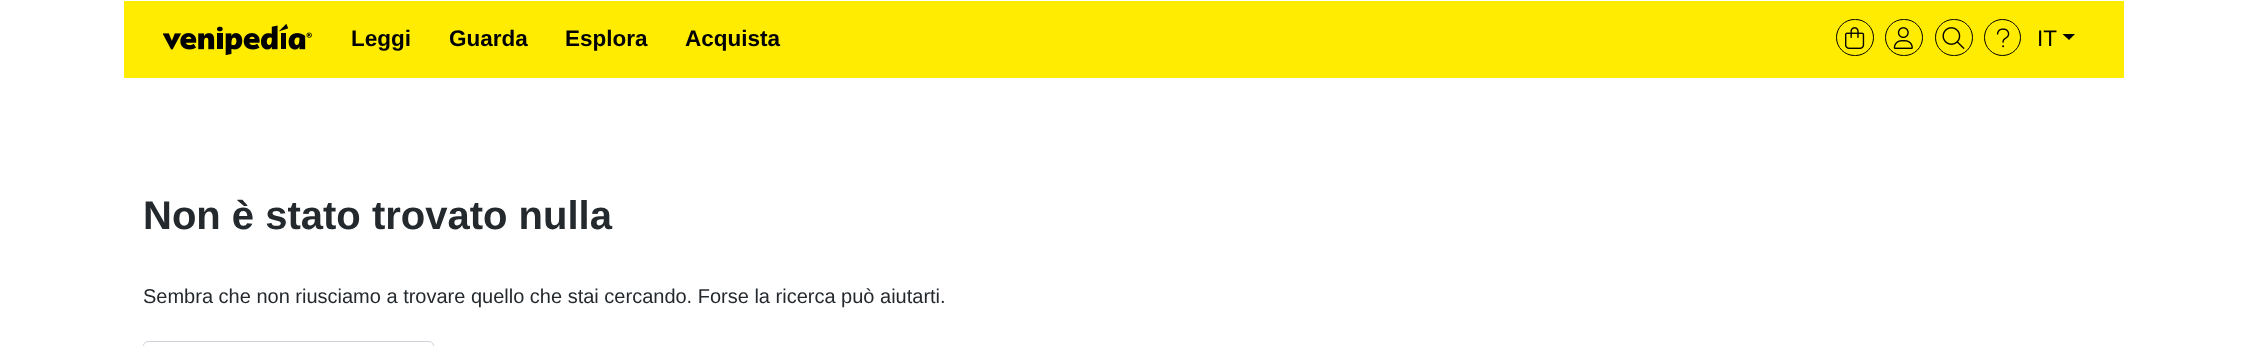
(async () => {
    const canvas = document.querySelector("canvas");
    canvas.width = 2247;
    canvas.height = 346;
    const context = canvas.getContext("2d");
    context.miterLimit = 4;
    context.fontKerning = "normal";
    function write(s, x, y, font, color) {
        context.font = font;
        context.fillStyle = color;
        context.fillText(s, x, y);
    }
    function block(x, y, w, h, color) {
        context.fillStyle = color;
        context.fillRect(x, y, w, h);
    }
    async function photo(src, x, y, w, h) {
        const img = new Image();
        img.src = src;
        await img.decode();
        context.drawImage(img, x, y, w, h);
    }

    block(0, 0, 2247, 346, "rgb(255, 255, 255)");
    block(124, 1, 2000, 77, "rgb(255, 236, 0)");
    await photo("media/1.png", 163, 24, 149, 31);
    write("Leggi", 351, 46, "bold 22.5px Liberation Sans", "rgb(0, 0, 0)");
    write("Guarda", 449, 46, "bold 22.5px Liberation Sans", "rgb(0, 0, 0)");
    write("Esplora", 565, 46, "bold 22.5px Liberation Sans", "rgb(0, 0, 0)");
    write("Acquista", 685, 46, "bold 22.5px Liberation Sans", "rgb(0, 0, 0)");
    context.beginPath();
    context.roundRect(1836.5, 19.5, 37, 36, 18);
    context.strokeStyle = "rgb(0, 0, 0)";
    context.stroke();
    await photo("media/2.png", 1845, 27, 20, 22);
    context.beginPath();
    context.roundRect(1885.5, 19.5, 37, 36, 18);
    context.stroke();
    await photo("media/3.png", 1893, 27, 20, 22);
    context.beginPath();
    context.roundRect(1935.5, 19.5, 37, 36, 18);
    context.stroke();
    await photo("media/4.png", 1942, 27, 23, 22);
    context.beginPath();
    context.arc(2002.5, 37.5, 18, 0, Math.PI * 2);
    context.stroke();
    await photo("media/5.png", 1996, 28, 14, 20);
    write("IT", 2037, 46, "22.5px Liberation Sans", "rgb(0, 0, 0)");
    context.beginPath();
    context.moveTo(2062.5, 34);
    context.lineTo(2075, 34);
    context.lineTo(2069, 40);
    context.closePath();
    context.fill();
    write("Non è stato trovato nulla", 143, 229, "bold 40px Liberation Sans", "rgb(36, 41, 46)");
    write("Sembra che non riusciamo a trovare quello che stai cercando. Forse la ricerca può aiutarti.", 143, 303, "20px Liberation Sans", "rgb(36, 41, 46)");
    context.beginPath();
    context.roundRect(143.5, 341.5, 290, 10, 4.5);
    context.strokeStyle = "rgb(206, 212, 218)";
    context.stroke();
})();
